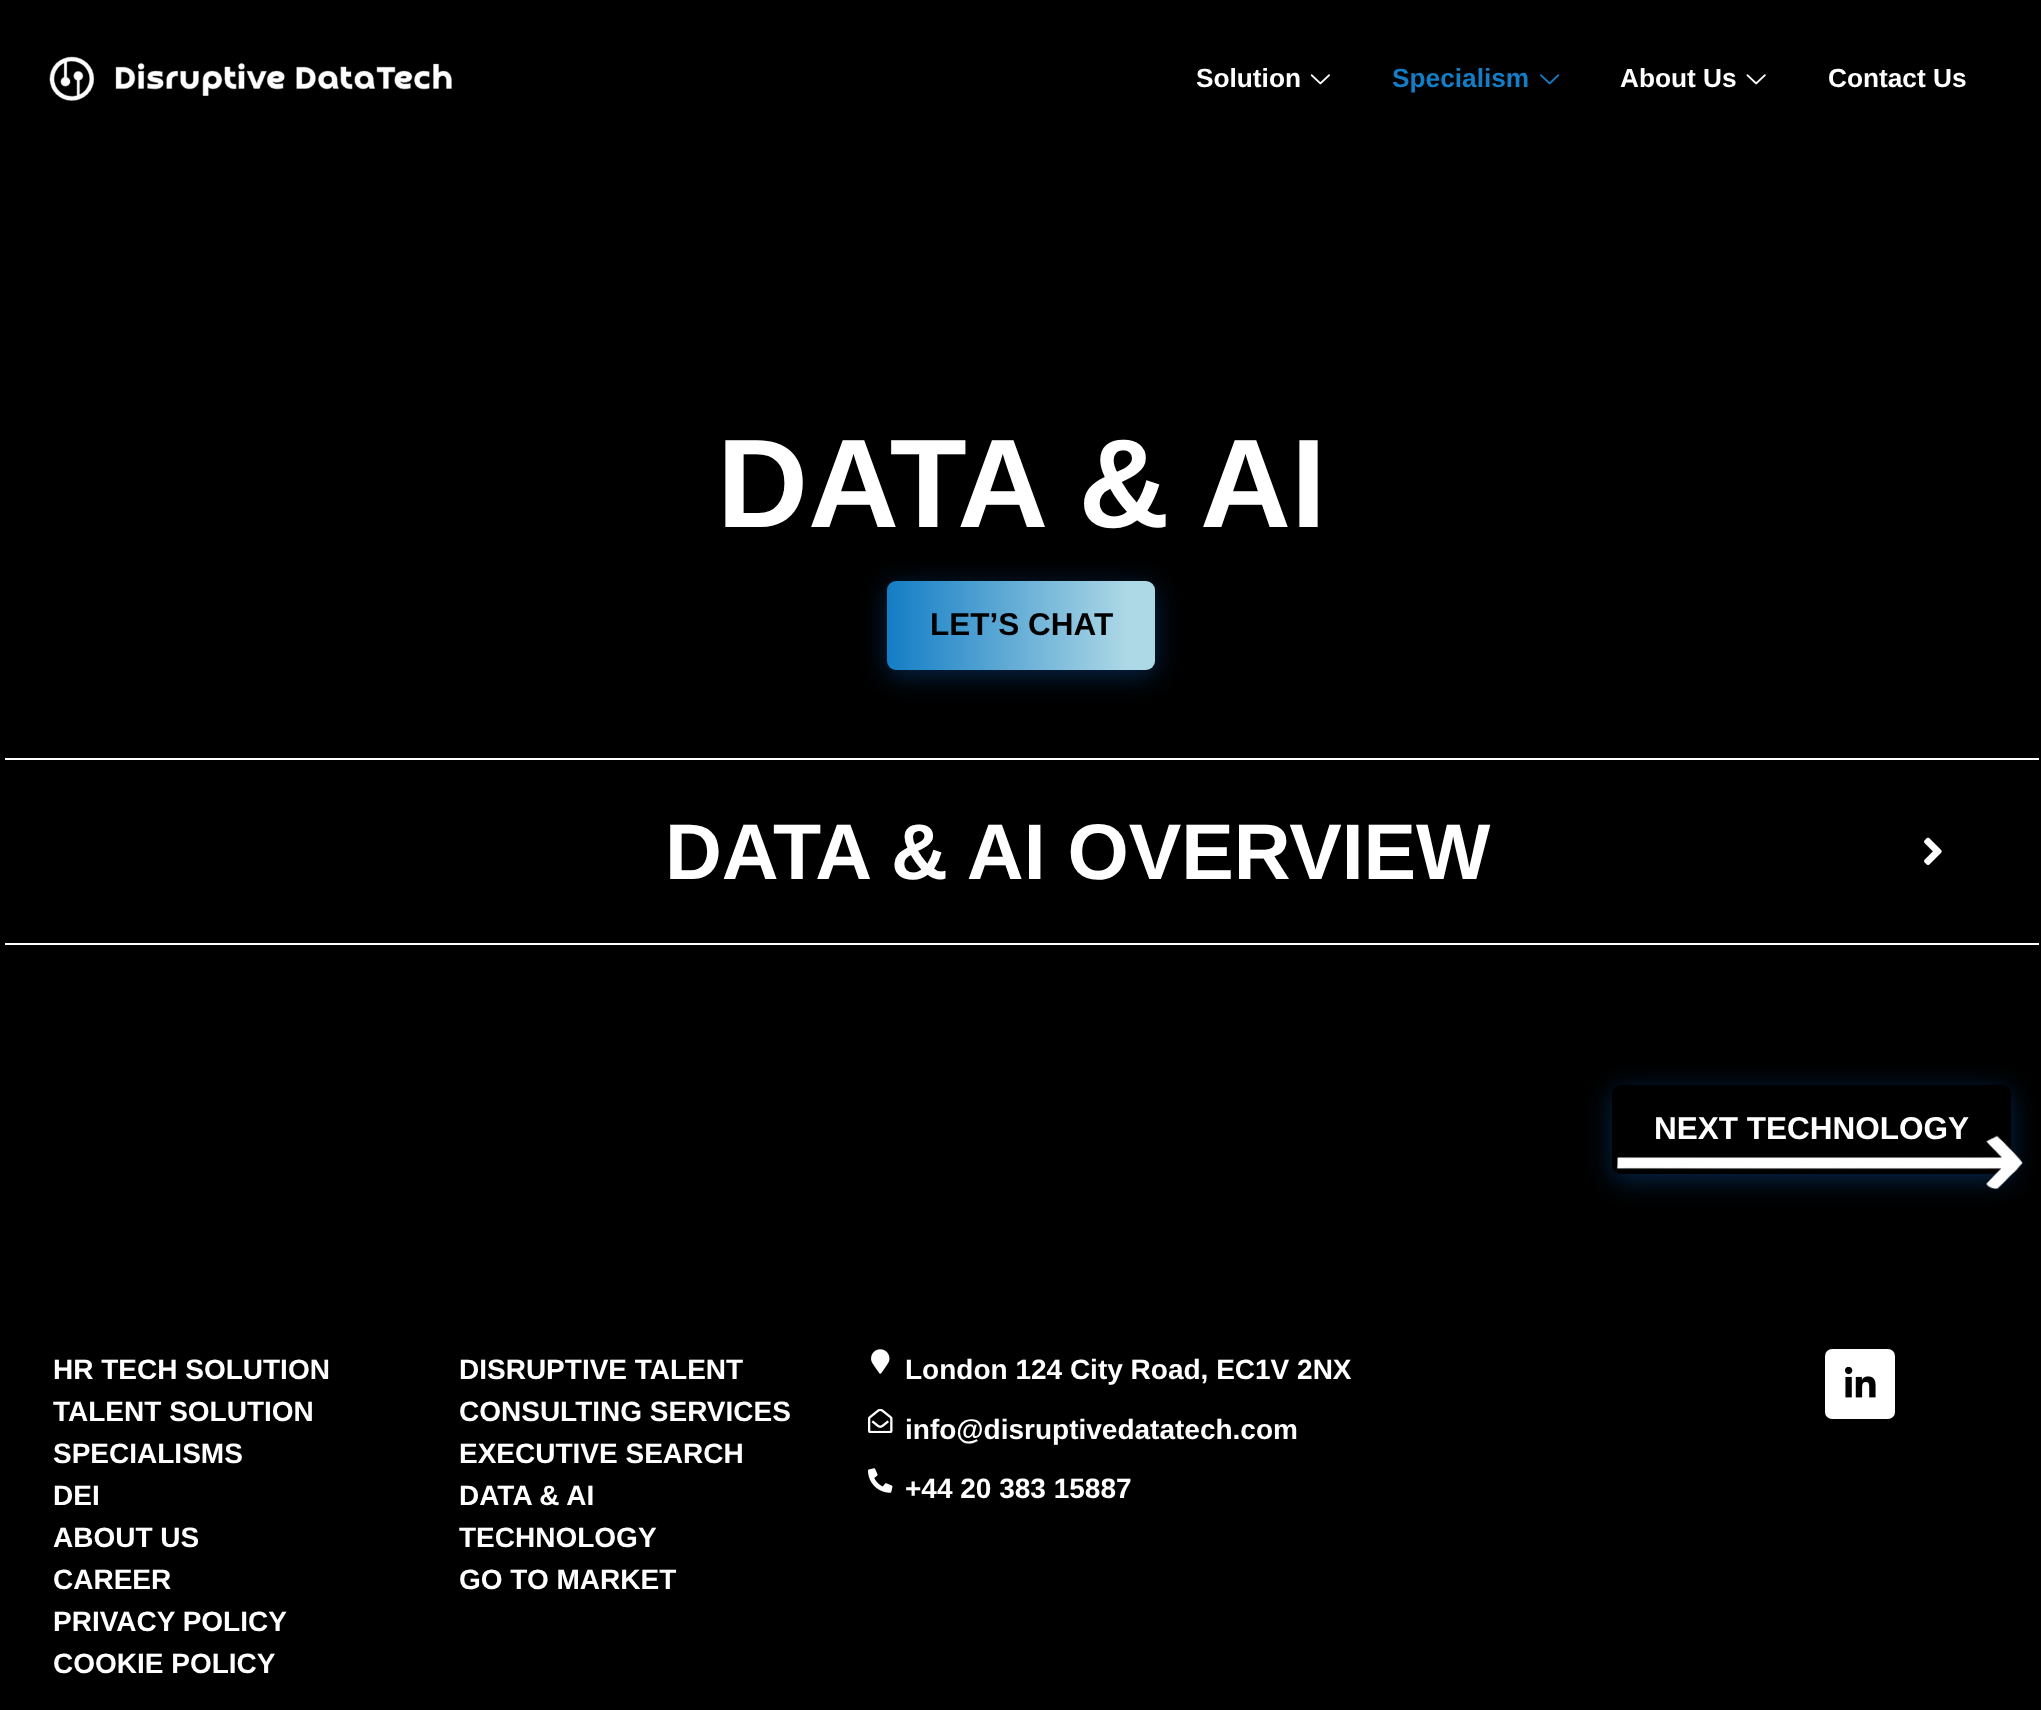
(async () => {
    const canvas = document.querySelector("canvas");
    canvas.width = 2041;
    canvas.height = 1710;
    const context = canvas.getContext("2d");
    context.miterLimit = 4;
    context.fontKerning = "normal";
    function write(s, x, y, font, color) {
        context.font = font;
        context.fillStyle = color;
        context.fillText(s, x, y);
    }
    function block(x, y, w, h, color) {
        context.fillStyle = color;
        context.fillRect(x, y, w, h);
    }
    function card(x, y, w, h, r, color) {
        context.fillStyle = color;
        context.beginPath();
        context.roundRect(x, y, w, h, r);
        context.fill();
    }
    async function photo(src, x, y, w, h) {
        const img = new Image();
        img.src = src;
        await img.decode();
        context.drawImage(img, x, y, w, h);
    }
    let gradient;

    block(0, 0, 2041, 1710, "rgb(0, 0, 0)");
    await photo("media/1.png", 49, 56, 403, 45);
    write("Solution", 1196, 87, "bold 26.25px Liberation Sans", "rgb(255, 255, 255)");
    await photo("media/2.png", 1310, 74, 20, 11);
    write("Specialism", 1392, 87, "bold 26.25px Liberation Sans", "rgb(19, 125, 197)");
    await photo("media/3.png", 1540, 74, 20, 11);
    write("About Us", 1620, 87, "bold 26.25px Liberation Sans", "rgb(255, 255, 255)");
    await photo("media/4.png", 1746, 74, 20, 11);
    write("Contact Us", 1828, 87, "bold 26.25px Liberation Sans", "rgb(255, 255, 255)");
    write("DATA & AI", 717, 527, "bold 126px Liberation Sans", "rgb(255, 255, 255)");
    context.fillStyle = "rgba(11, 92, 181, 0.4)";
    context.filter = "blur(13px)";
    context.beginPath();
    context.roundRect(887, 586, 268, 90, 9);
    context.fill();
    context.filter = "none";
    gradient = context.createLinearGradient(887, 626, 1155, 626);
    gradient.addColorStop(0, "rgb(19, 125, 197)");
    gradient.addColorStop(0.9, "rgb(173, 216, 230)");
    context.fillStyle = gradient;
    context.beginPath();
    context.roundRect(887, 581, 268, 89, 9);
    context.fill();
    write("LET’S CHAT", 930, 635, "bold 31.5px Liberation Sans", "rgb(0, 0, 0)");
    block(5, 758, 2034, 2, "rgb(255, 255, 255)");
    block(5, 943, 2034, 2, "rgb(255, 255, 255)");
    write("DATA & AI OVERVIEW", 665, 879, "bold 78.75px Liberation Sans", "rgb(255, 255, 255)");
    await photo("media/5.png", 1924, 837, 18, 28);
    context.save();
    context.beginPath();
    context.moveTo(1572, 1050);
    context.lineTo(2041, 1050);
    context.lineTo(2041, 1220);
    context.lineTo(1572, 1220);
    context.closePath();
    context.moveTo(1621, 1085);
    context.lineTo(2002, 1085);
    context.bezierCurveTo(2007, 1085, 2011, 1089, 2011, 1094);
    context.lineTo(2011, 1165);
    context.bezierCurveTo(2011, 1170, 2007, 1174, 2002, 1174);
    context.lineTo(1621, 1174);
    context.bezierCurveTo(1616, 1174, 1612, 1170, 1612, 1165);
    context.lineTo(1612, 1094);
    context.bezierCurveTo(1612, 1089, 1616, 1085, 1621, 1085);
    context.closePath();
    context.clip("evenodd");
    context.fillStyle = "rgba(11, 92, 181, 0.4)";
    context.filter = "blur(13px)";
    context.beginPath();
    context.roundRect(1612, 1090, 399, 90, 9);
    context.fill();
    context.filter = "none";
    context.restore();
    write("NEXT TECHNOLOGY", 1654, 1139, "bold 31.5px Liberation Sans", "rgb(255, 255, 255)");
    await photo("media/6.png", 1617, 1135, 406, 55);
    write("HR TECH SOLUTION", 53, 1379, "bold 28px Liberation Sans", "rgb(255, 255, 255)");
    write("TALENT SOLUTION", 53, 1421, "bold 28px Liberation Sans", "rgb(255, 255, 255)");
    write("SPECIALISMS", 53, 1463, "bold 28px Liberation Sans", "rgb(255, 255, 255)");
    write("DEI", 53, 1505, "bold 28px Liberation Sans", "rgb(255, 255, 255)");
    write("ABOUT US", 53, 1547, "bold 28px Liberation Sans", "rgb(255, 255, 255)");
    write("CAREER", 53, 1589, "bold 28px Liberation Sans", "rgb(255, 255, 255)");
    write("PRIVACY POLICY", 53, 1631, "bold 28px Liberation Sans", "rgb(255, 255, 255)");
    write("COOKIE POLICY", 53, 1673, "bold 28px Liberation Sans", "rgb(255, 255, 255)");
    write("DISRUPTIVE TALENT", 459, 1379, "bold 28px Liberation Sans", "rgb(255, 255, 255)");
    write("CONSULTING SERVICES", 459, 1421, "bold 28px Liberation Sans", "rgb(255, 255, 255)");
    write("EXECUTIVE SEARCH", 459, 1463, "bold 28px Liberation Sans", "rgb(255, 255, 255)");
    write("DATA & AI", 459, 1505, "bold 28px Liberation Sans", "rgb(255, 255, 255)");
    write("TECHNOLOGY", 459, 1547, "bold 28px Liberation Sans", "rgb(255, 255, 255)");
    write("GO TO MARKET", 459, 1589, "bold 28px Liberation Sans", "rgb(255, 255, 255)");
    await photo("media/7.png", 871, 1349, 19, 25);
    write("London 124 City Road, EC1V 2NX", 905, 1379, "bold 28px Liberation Sans", "rgb(255, 255, 255)");
    await photo("media/8.png", 868, 1409, 25, 24);
    write("info@disruptivedatatech.com", 905, 1439, "bold 28px Liberation Sans", "rgb(255, 255, 255)");
    await photo("media/9.png", 868, 1468, 25, 25);
    write("+44 20 383 15887", 905, 1498, "bold 28px Liberation Sans", "rgb(255, 255, 255)");
    card(1825, 1349, 70, 70, 7, "rgb(255, 255, 255)");
    await photo("media/10.png", 1845, 1367, 31, 31);
})();
